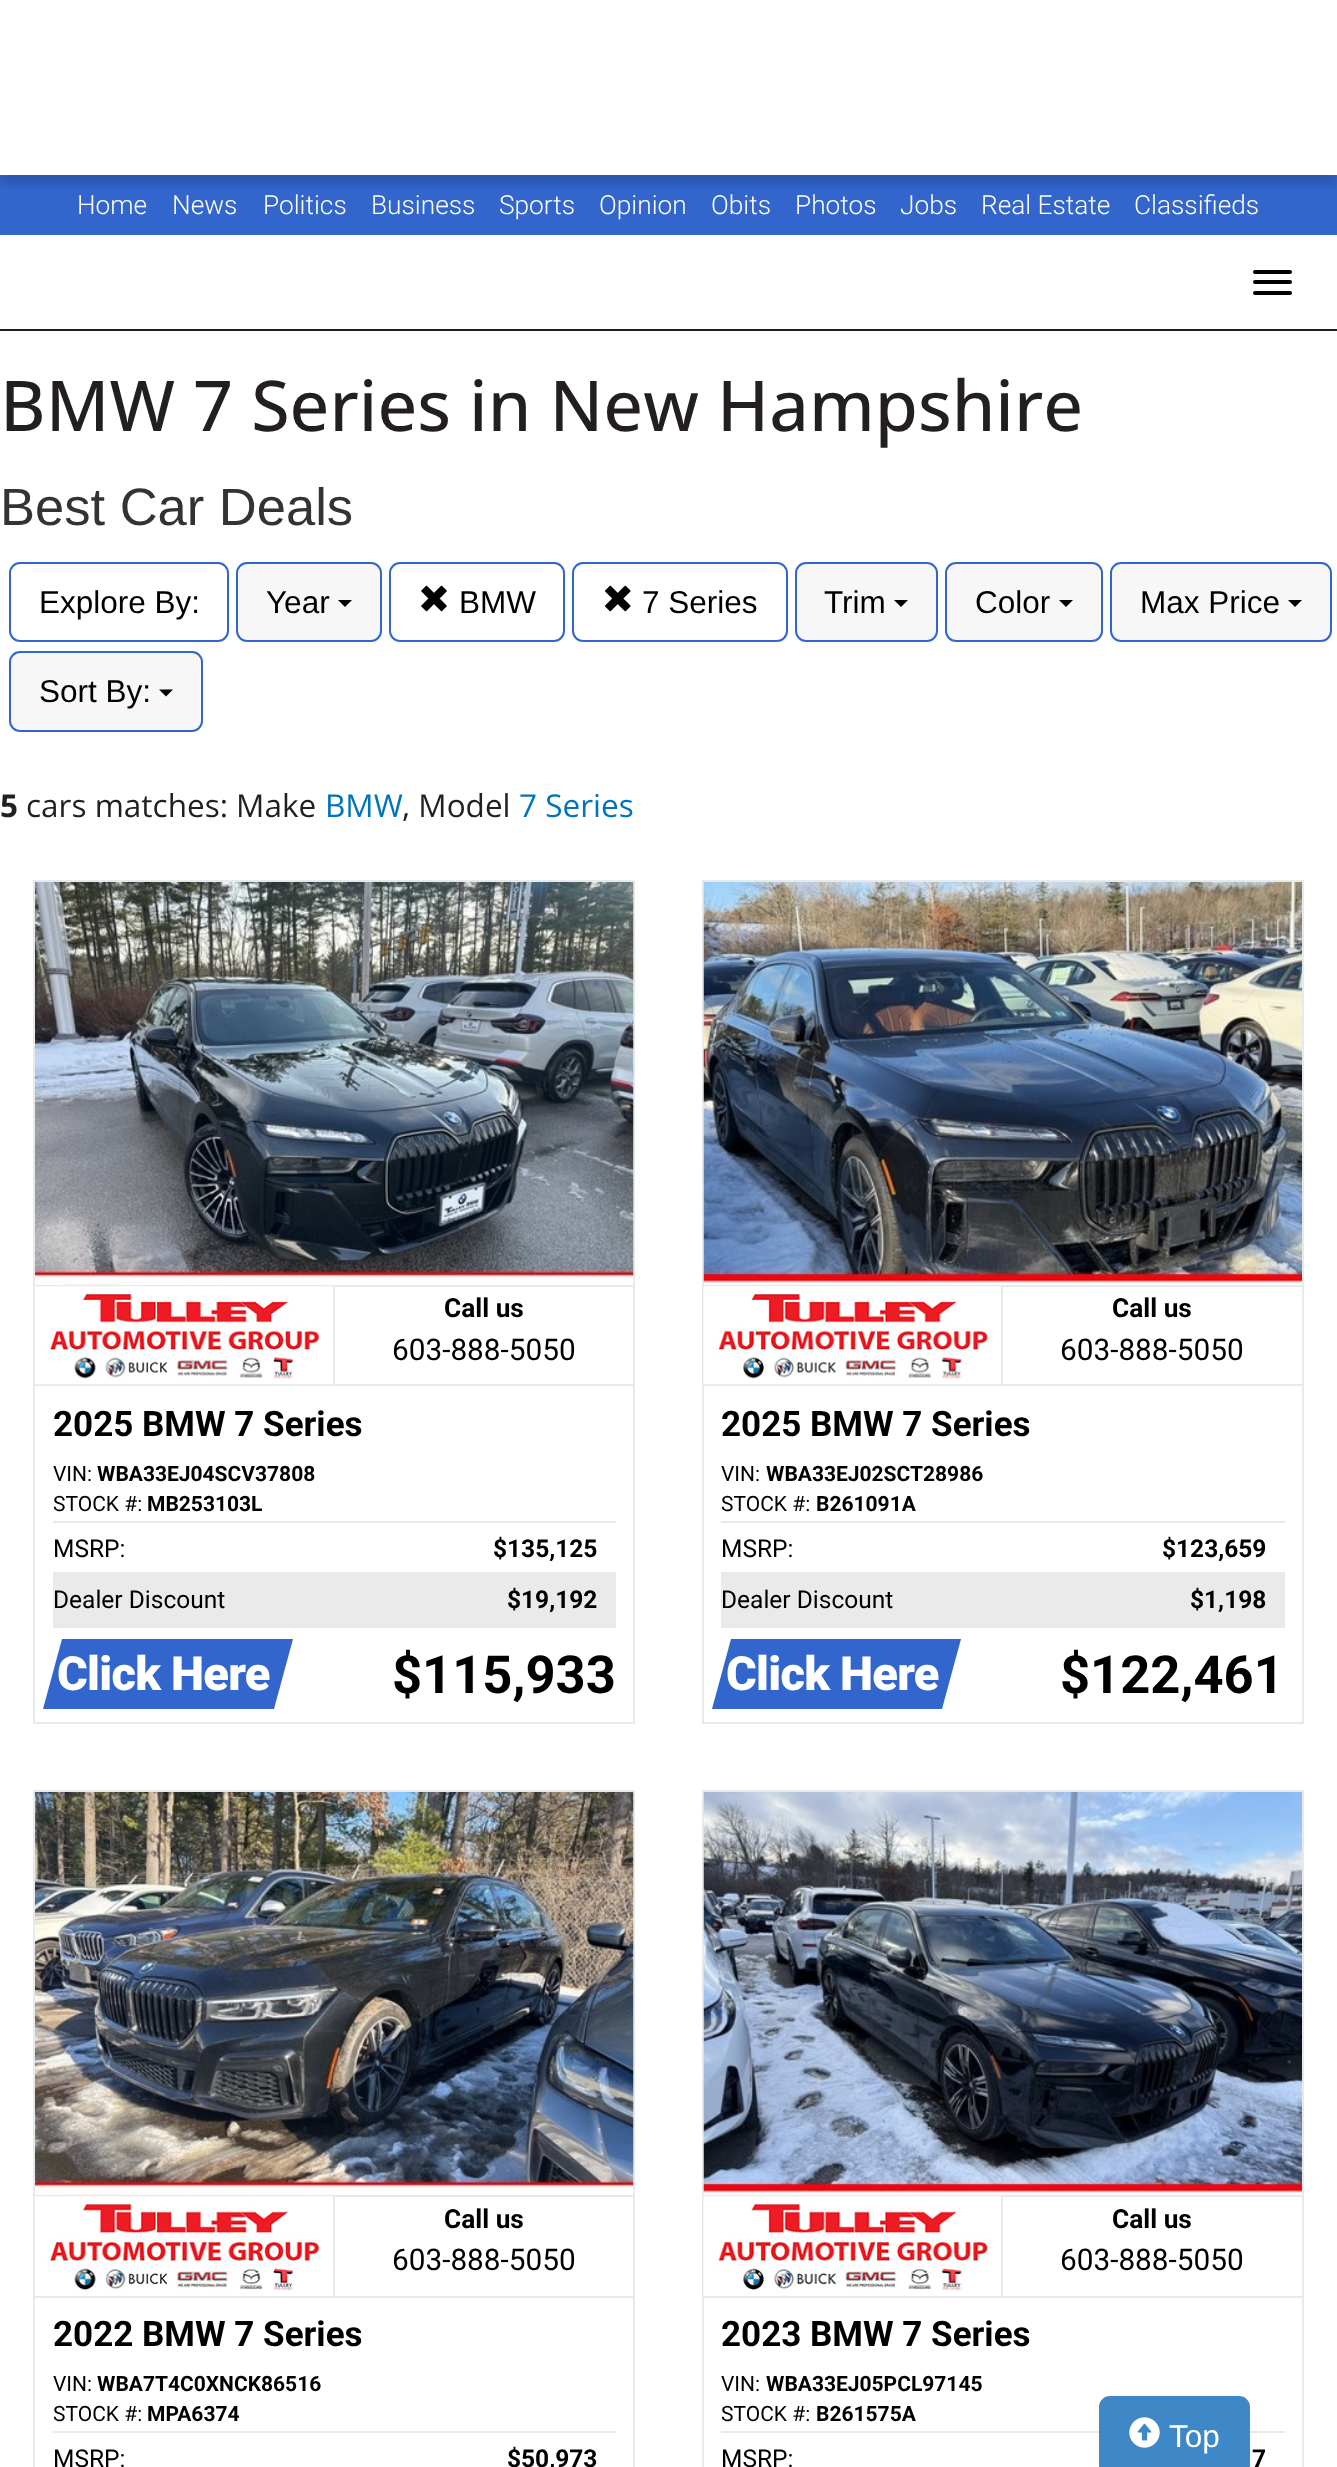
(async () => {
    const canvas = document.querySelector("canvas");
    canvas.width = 1337;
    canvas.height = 2467;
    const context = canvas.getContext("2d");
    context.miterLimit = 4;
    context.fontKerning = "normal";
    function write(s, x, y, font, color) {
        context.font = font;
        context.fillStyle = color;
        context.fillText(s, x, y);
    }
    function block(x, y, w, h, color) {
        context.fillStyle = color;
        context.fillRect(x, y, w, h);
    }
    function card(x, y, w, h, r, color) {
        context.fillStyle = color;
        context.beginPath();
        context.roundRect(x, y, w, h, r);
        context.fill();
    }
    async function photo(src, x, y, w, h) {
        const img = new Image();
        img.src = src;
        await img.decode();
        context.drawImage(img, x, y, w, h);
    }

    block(0, 0, 1337, 2467, "rgb(255, 255, 255)");
    block(0, 175, 1337, 60, "rgb(50, 102, 204)");
    context.save();
    context.beginPath();
    context.rect(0, 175, 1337, 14);
    context.clip();
    context.fillStyle = "rgba(0, 0, 0, 0.14)";
    context.filter = "blur(4.5px)";
    context.beginPath();
    context.rect(0, 9, 1337, 175);
    context.fill();
    context.filter = "none";
    context.restore();
    write("Home", 77, 214, "300 26.25px Roboto", "rgb(255, 255, 255)");
    write("News", 172, 214, "300 26.25px Roboto", "rgb(255, 255, 255)");
    write("Politics", 263, 214, "300 26.25px Roboto", "rgb(255, 255, 255)");
    write("Business", 371, 214, "300 26.25px Roboto", "rgb(255, 255, 255)");
    write("Sports", 499, 214, "300 26.25px Roboto", "rgb(255, 255, 255)");
    write("Opinion", 599, 214, "300 26.25px Roboto", "rgb(255, 255, 255)");
    write("Obits", 711, 214, "300 26.25px Roboto", "rgb(255, 255, 255)");
    write("Photos", 795, 214, "300 26.25px Roboto", "rgb(255, 255, 255)");
    write("Jobs", 900, 214, "300 26.25px Roboto", "rgb(255, 255, 255)");
    write("Real Estate", 981, 214, "300 26.25px Roboto", "rgb(255, 255, 255)");
    write("Classifieds", 1134, 214, "300 26.25px Roboto", "rgb(255, 255, 255)");
    block(0, 329, 1337, 2, "rgb(30, 30, 30)");
    card(1253, 270, 39, 4, 2, "rgb(0, 0, 0)");
    card(1253, 280, 39, 4, 2, "rgb(0, 0, 0)");
    card(1253, 291, 39, 4, 2, "rgb(0, 0, 0)");
    write("BMW 7 Series in New Hampshire", 0, 431, "500 70px Open Sans", "rgb(35, 31, 32)");
    write("Best Car Deals", 0, 525, "52.5px Liberation Sans", "rgb(51, 51, 51)");
    context.beginPath();
    context.roundRect(10, 563, 218, 78, 10);
    context.strokeStyle = "rgb(50, 102, 204)";
    context.lineWidth = 2;
    context.stroke();
    write("Explore By:", 39, 613, "31.5px Liberation Sans", "rgb(0, 0, 0)");
    context.fillStyle = "rgb(247, 247, 247)";
    context.beginPath();
    context.roundRect(237, 563, 144, 78, 10);
    context.fill();
    context.stroke();
    write("Year", 266, 613, "31.5px Liberation Sans", "rgb(0, 0, 0)");
    context.beginPath();
    context.moveTo(338, 600);
    context.lineTo(352, 600);
    context.lineTo(345, 607);
    context.closePath();
    context.fill();
    context.beginPath();
    context.roundRect(390, 563, 174, 78, 10);
    context.stroke();
    await photo("media/1.png", 421, 585, 26, 27);
    write("BMW", 459, 613, "31.5px Liberation Sans", "rgb(0, 0, 0)");
    context.beginPath();
    context.roundRect(573, 563, 214, 78, 10);
    context.stroke();
    await photo("media/2.png", 605, 585, 26, 27);
    write("7 Series", 642, 613, "31.5px Liberation Sans", "rgb(0, 0, 0)");
    context.fillStyle = "rgb(247, 247, 247)";
    context.beginPath();
    context.roundRect(796, 563, 141, 78, 10);
    context.fill();
    context.stroke();
    write("Trim", 824, 613, "31.5px Liberation Sans", "rgb(0, 0, 0)");
    context.beginPath();
    context.moveTo(894, 600);
    context.lineTo(908, 600);
    context.lineTo(901, 607);
    context.closePath();
    context.fill();
    context.fillStyle = "rgb(247, 247, 247)";
    context.beginPath();
    context.roundRect(946, 563, 156, 78, 10);
    context.fill();
    context.stroke();
    write("Color", 975, 613, "31.5px Liberation Sans", "rgb(0, 0, 0)");
    context.beginPath();
    context.moveTo(1059, 600);
    context.lineTo(1073, 600);
    context.lineTo(1066, 607);
    context.closePath();
    context.fill();
    context.fillStyle = "rgb(247, 247, 247)";
    context.beginPath();
    context.roundRect(1111, 563, 220, 78, 10);
    context.fill();
    context.stroke();
    write("Max Price", 1140, 613, "31.5px Liberation Sans", "rgb(0, 0, 0)");
    context.beginPath();
    context.moveTo(1288, 600);
    context.lineTo(1302, 600);
    context.lineTo(1295, 607);
    context.closePath();
    context.fill();
    context.fillStyle = "rgb(247, 247, 247)";
    context.beginPath();
    context.roundRect(10, 652, 192, 79, 10);
    context.fill();
    context.stroke();
    write("Sort By:", 39, 702, "31.5px Liberation Sans", "rgb(0, 0, 0)");
    context.beginPath();
    context.moveTo(159, 689.5);
    context.lineTo(173, 689.5);
    context.lineTo(166, 696.5);
    context.closePath();
    context.fill();
    write("5", 0, 817, "bold 31.5px Open Sans", "rgb(35, 31, 32)");
    write("cars matches: Make", 26, 817, "31.5px Open Sans", "rgb(35, 31, 32)");
    write("BMW", 325, 817, "31.5px Open Sans", "rgb(0, 115, 189)");
    write(", Model", 402, 817, "31.5px Open Sans", "rgb(35, 31, 32)");
    write("7 Series", 519, 817, "31.5px Open Sans", "rgb(0, 115, 189)");
    context.strokeStyle = "rgb(230, 234, 234)";
    context.strokeRect(34, 881, 600, 842);
    await photo("media/3.png", 35, 882, 599, 403);
    block(35, 1285, 299, 2, "rgb(230, 234, 234)");
    block(333, 1285, 2, 101, "rgb(230, 234, 234)");
    block(35, 1384, 599, 2, "rgb(230, 234, 234)");
    await photo("media/4.png", 35, 1286, 298, 99);
    block(334, 1285, 300, 2, "rgb(230, 234, 234)");
    write("Call us", 444, 1317, "bold 26.25px Roboto", "rgb(0, 0, 0)");
    write("603-888-5050", 392, 1360, "29.75px Roboto", "rgb(0, 0, 0)");
    write("2025 BMW 7 Series", 53, 1436, "bold 35px Roboto", "rgb(0, 0, 0)");
    write("VIN:", 53, 1481, "21px Roboto", "rgb(0, 0, 0)");
    write("WBA33EJ04SCV37808", 97, 1481, "bold 21px Roboto", "rgb(0, 0, 0)");
    write("STOCK #:", 53, 1511, "21px Roboto", "rgb(0, 0, 0)");
    write("MB253103L", 147, 1511, "bold 21px Roboto", "rgb(0, 0, 0)");
    block(53, 1521, 563, 2, "rgb(230, 234, 234)");
    block(53, 1572, 563, 1, "rgb(230, 234, 234)");
    write("MSRP:", 53, 1557, "24.5px Roboto", "rgb(0, 0, 0)");
    write("$135,125", 493, 1557, "bold 24.5px Roboto", "rgb(0, 0, 0)");
    block(53, 1573, 563, 51, "rgb(234, 234, 234)");
    block(53, 1624, 563, 4, "rgb(230, 234, 234)");
    write("Dealer Discount", 53, 1608, "24.5px Roboto", "rgb(0, 0, 0)");
    write("$19,192", 507, 1608, "bold 24.5px Roboto", "rgb(0, 0, 0)");
    context.fillStyle = "rgb(50, 102, 204)";
    context.beginPath();
    context.moveTo(62, 1639);
    context.lineTo(293, 1639);
    context.lineTo(274, 1709);
    context.lineTo(43, 1709);
    context.closePath();
    context.fill();
    context.letterSpacing = "-0.75px";
    write("Click Here", 57, 1690, "900 47px Roboto", "rgb(255, 255, 255)");
    context.letterSpacing = "0px";
    write("$115,933", 392, 1693, "bold 52.5px Roboto", "rgb(0, 0, 0)");
    context.strokeRect(703, 881, 600, 842);
    await photo("media/5.png", 703, 882, 599, 403);
    block(704, 1285, 598, 2, "rgb(230, 234, 234)");
    block(1001, 1285, 2, 101, "rgb(230, 234, 234)");
    block(704, 1384, 598, 2, "rgb(230, 234, 234)");
    await photo("media/6.png", 703, 1286, 298, 99);
    write("Call us", 1112, 1317, "bold 26.25px Roboto", "rgb(0, 0, 0)");
    write("603-888-5050", 1060, 1360, "29.75px Roboto", "rgb(0, 0, 0)");
    write("2025 BMW 7 Series", 721, 1436, "bold 35px Roboto", "rgb(0, 0, 0)");
    write("VIN:", 721, 1481, "21px Roboto", "rgb(0, 0, 0)");
    write("WBA33EJ02SCT28986", 766, 1481, "bold 21px Roboto", "rgb(0, 0, 0)");
    write("STOCK #:", 721, 1511, "21px Roboto", "rgb(0, 0, 0)");
    write("B261091A", 816, 1511, "bold 21px Roboto", "rgb(0, 0, 0)");
    block(721, 1521, 564, 2, "rgb(230, 234, 234)");
    block(721, 1572, 564, 1, "rgb(230, 234, 234)");
    write("MSRP:", 721, 1557, "24.5px Roboto", "rgb(0, 0, 0)");
    write("$123,659", 1162, 1557, "bold 24.5px Roboto", "rgb(0, 0, 0)");
    block(721, 1573, 564, 51, "rgb(234, 234, 234)");
    block(721, 1624, 564, 4, "rgb(230, 234, 234)");
    write("Dealer Discount", 721, 1608, "24.5px Roboto", "rgb(0, 0, 0)");
    write("$1,198", 1190, 1608, "bold 24.5px Roboto", "rgb(0, 0, 0)");
    context.fillStyle = "rgb(50, 102, 204)";
    context.beginPath();
    context.moveTo(731, 1639);
    context.lineTo(961, 1639);
    context.lineTo(942, 1709);
    context.lineTo(712, 1709);
    context.closePath();
    context.fill();
    context.letterSpacing = "-0.75px";
    write("Click Here", 726, 1690, "900 47px Roboto", "rgb(255, 255, 255)");
    context.letterSpacing = "0px";
    write("$122,461", 1060, 1693, "bold 52.5px Roboto", "rgb(0, 0, 0)");
    context.strokeRect(34, 1791, 600, 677);
    await photo("media/7.png", 35, 1792, 599, 403);
    block(35, 2195, 299, 2, "rgb(230, 234, 234)");
    block(333, 2195, 2, 103, "rgb(230, 234, 234)");
    block(35, 2296, 599, 2, "rgb(230, 234, 234)");
    await photo("media/8.png", 35, 2196, 298, 96);
    block(334, 2195, 300, 2, "rgb(230, 234, 234)");
    write("Call us", 444, 2228, "bold 26.25px Roboto", "rgb(0, 0, 0)");
    write("603-888-5050", 392, 2270, "29.75px Roboto", "rgb(0, 0, 0)");
    write("2022 BMW 7 Series", 53, 2346, "bold 35px Roboto", "rgb(0, 0, 0)");
    write("VIN:", 53, 2391, "21px Roboto", "rgb(0, 0, 0)");
    write("WBA7T4C0XNCK86516", 97, 2391, "bold 21px Roboto", "rgb(0, 0, 0)");
    write("STOCK #:", 53, 2421, "21px Roboto", "rgb(0, 0, 0)");
    write("MPA6374", 147, 2421, "bold 21px Roboto", "rgb(0, 0, 0)");
    block(53, 2431, 563, 2, "rgb(230, 234, 234)");
    write("MSRP:", 53, 2467, "24.5px Roboto", "rgb(0, 0, 0)");
    write("$50,973", 507, 2467, "bold 24.5px Roboto", "rgb(0, 0, 0)");
    context.strokeRect(703, 1791, 600, 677);
    await photo("media/9.png", 703, 1792, 599, 403);
    block(704, 2195, 598, 2, "rgb(230, 234, 234)");
    block(1001, 2195, 2, 103, "rgb(230, 234, 234)");
    block(704, 2296, 598, 2, "rgb(230, 234, 234)");
    await photo("media/10.png", 703, 2196, 298, 100);
    write("Call us", 1112, 2228, "bold 26.25px Roboto", "rgb(0, 0, 0)");
    write("603-888-5050", 1060, 2270, "29.75px Roboto", "rgb(0, 0, 0)");
    write("2023 BMW 7 Series", 721, 2346, "bold 35px Roboto", "rgb(0, 0, 0)");
    write("VIN:", 721, 2391, "21px Roboto", "rgb(0, 0, 0)");
    write("WBA33EJ05PCL97145", 766, 2391, "bold 21px Roboto", "rgb(0, 0, 0)");
    write("STOCK #:", 721, 2421, "21px Roboto", "rgb(0, 0, 0)");
    write("B261575A", 816, 2421, "bold 21px Roboto", "rgb(0, 0, 0)");
    block(721, 2431, 564, 2, "rgb(230, 234, 234)");
    write("MSRP:", 721, 2467, "24.5px Roboto", "rgb(0, 0, 0)");
    write("7", 1252, 2467, "bold 24.5px Roboto", "rgb(0, 0, 0)");
    context.fillStyle = "rgb(63, 136, 199)";
    context.beginPath();
    context.roundRect(1100, 2397, 149, 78, 10);
    context.fill();
    context.strokeStyle = "rgb(63, 136, 199)";
    context.stroke();
    await photo("media/11.png", 1129, 2417, 31, 31);
    write("Top", 1169, 2447, "31.5px Liberation Sans", "rgb(255, 255, 255)");
})();
